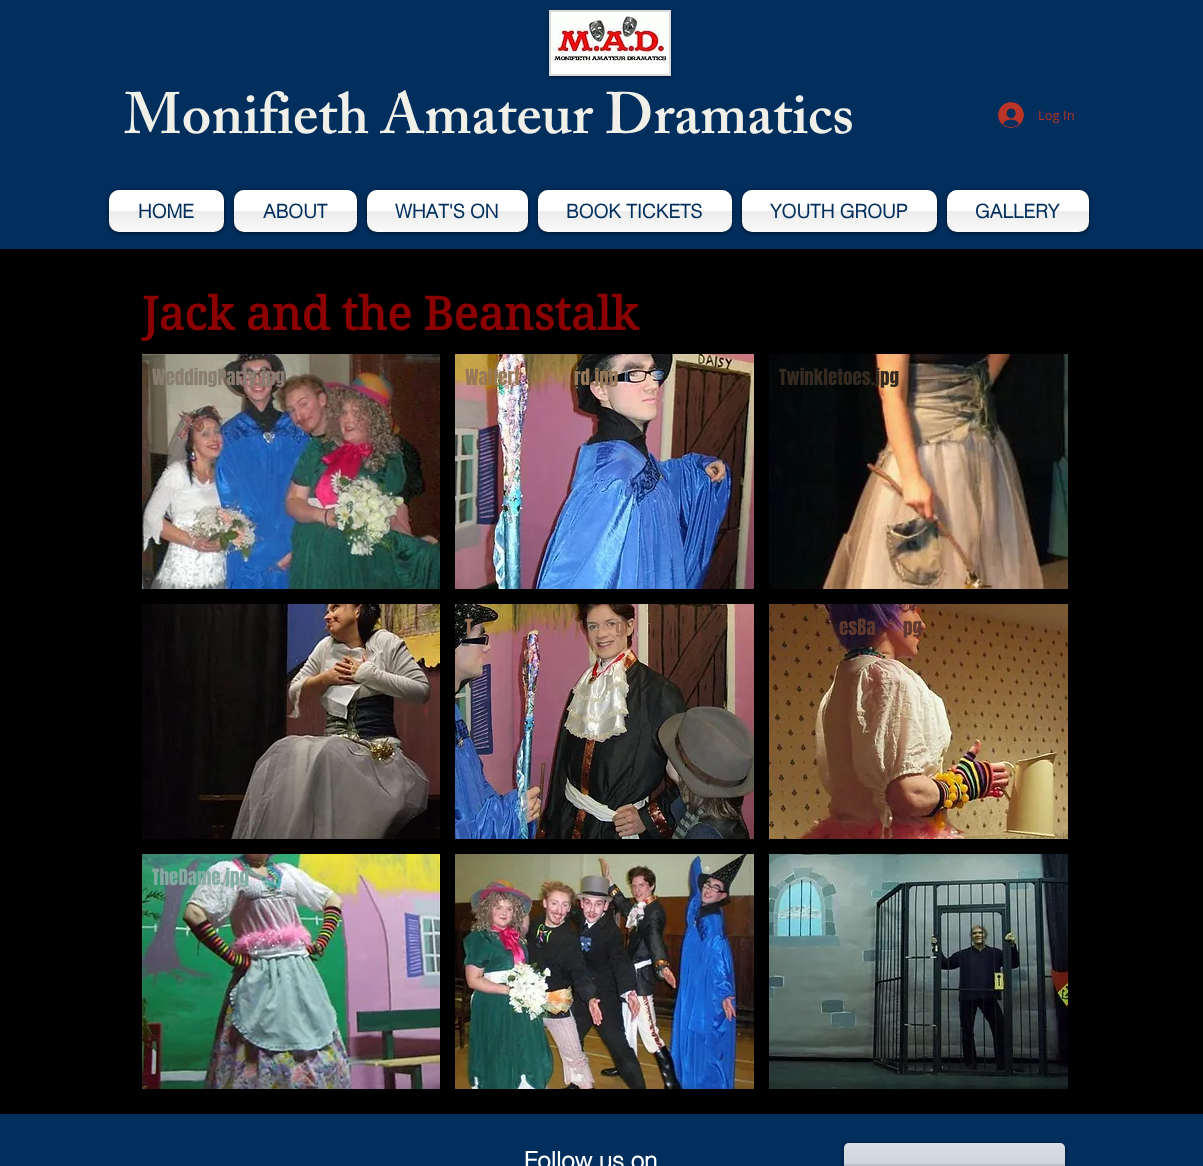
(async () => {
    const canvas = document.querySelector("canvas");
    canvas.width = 1203;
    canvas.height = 1166;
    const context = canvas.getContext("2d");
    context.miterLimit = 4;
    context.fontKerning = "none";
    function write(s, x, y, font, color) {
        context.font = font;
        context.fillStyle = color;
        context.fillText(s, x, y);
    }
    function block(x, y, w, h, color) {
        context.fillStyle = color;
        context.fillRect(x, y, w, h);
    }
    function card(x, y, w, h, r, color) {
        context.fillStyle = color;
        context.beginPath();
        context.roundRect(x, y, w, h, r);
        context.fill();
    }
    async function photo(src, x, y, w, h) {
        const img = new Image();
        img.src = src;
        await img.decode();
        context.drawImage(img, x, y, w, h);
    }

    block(0, 0, 1203, 1166, "rgb(0, 0, 0)");
    block(0, 0, 1203, 249, "rgb(0, 46, 93)");
    context.fillStyle = "rgba(0, 0, 0, 0.5)";
    context.filter = "blur(1.5px)";
    context.beginPath();
    context.rect(549, 11, 122, 66);
    context.fill();
    context.filter = "none";
    block(549, 10, 122, 66, "rgb(219, 219, 219)");
    await photo("media/1.png", 551, 12, 118, 62);
    write("Monifieth Amateur Dramatics", 124, 133, "600 58px 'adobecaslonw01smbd'", "rgb(240, 239, 232)");
    await photo("media/2.png", 998, 102, 26, 26);
    write("Log In", 1038, 120, "13px Open Sans", "rgb(188, 52, 39)");
    context.fillStyle = "rgba(0, 0, 0, 0.6)";
    context.filter = "blur(2px)";
    context.beginPath();
    context.roundRect(109, 191, 115, 42, 10);
    context.fill();
    context.filter = "none";
    card(109, 190, 115, 42, 10, "rgb(255, 255, 255)");
    await photo("media/3.png", 109, 190, 115, 42);
    write("HOME", 138, 218, "bold 19px helvetica", "rgb(0, 46, 93)");
    context.fillStyle = "rgba(0, 0, 0, 0.6)";
    context.filter = "blur(2px)";
    context.beginPath();
    context.roundRect(234, 191, 123, 42, 10);
    context.fill();
    context.filter = "none";
    card(234, 190, 123, 42, 10, "rgb(255, 255, 255)");
    await photo("media/4.png", 234, 190, 123, 42);
    write("ABOUT", 263, 218, "bold 19px helvetica", "rgb(0, 46, 93)");
    context.fillStyle = "rgba(0, 0, 0, 0.6)";
    context.filter = "blur(2px)";
    context.beginPath();
    context.roundRect(367, 191, 161, 42, 10);
    context.fill();
    context.filter = "none";
    card(367, 190, 161, 42, 10, "rgb(255, 255, 255)");
    await photo("media/5.png", 367, 190, 161, 42);
    write("WHAT'S ON", 395, 218, "bold 19px helvetica", "rgb(0, 46, 93)");
    context.fillStyle = "rgba(0, 0, 0, 0.6)";
    context.filter = "blur(2px)";
    context.beginPath();
    context.roundRect(538, 191, 194, 42, 10);
    context.fill();
    context.filter = "none";
    card(538, 190, 194, 42, 10, "rgb(255, 255, 255)");
    await photo("media/6.png", 538, 190, 194, 42);
    write("BOOK TICKETS", 566, 218, "bold 19px helvetica", "rgb(0, 46, 93)");
    context.fillStyle = "rgba(0, 0, 0, 0.6)";
    context.filter = "blur(2px)";
    context.beginPath();
    context.roundRect(742, 191, 195, 42, 10);
    context.fill();
    context.filter = "none";
    card(742, 190, 195, 42, 10, "rgb(255, 255, 255)");
    await photo("media/7.png", 742, 190, 195, 42);
    write("YOUTH GROUP", 770, 218, "bold 19px helvetica", "rgb(0, 46, 93)");
    context.fillStyle = "rgba(0, 0, 0, 0.6)";
    context.filter = "blur(2px)";
    context.beginPath();
    context.roundRect(947, 191, 142, 42, 10);
    context.fill();
    context.filter = "none";
    card(947, 190, 142, 42, 10, "rgb(255, 255, 255)");
    await photo("media/8.png", 947, 190, 142, 42);
    write("GALLERY", 975, 218, "bold 19px helvetica", "rgb(0, 46, 93)");
    write("Jack and the Beanstalk", 142, 330, "bold 46px 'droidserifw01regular'", "rgb(139, 0, 0)");
    await photo("media/9.png", 142, 354, 298, 235);
    write("WeddingParty.jpg", 152, 385, "19px Anton", "rgb(136, 123, 111)");
    await photo("media/10.png", 455, 354, 299, 235);
    write("Waltert", 465, 385, "19px Anton", "rgb(151, 121, 90)");
    write("rd.jpg", 574, 385, "19px Anton", "rgb(151, 121, 90)");
    await photo("media/11.png", 769, 354, 299, 235);
    write("Twinkletoes.jpg", 779, 385, "19px Anton", "rgb(52, 42, 31)");
    await photo("media/12.png", 142, 604, 298, 235);
    await photo("media/13.png", 455, 604, 299, 235);
    write("T", 465, 635, "19px Anton", "rgb(154, 111, 89)");
    write("g", 615, 635, "19px Anton", "rgb(154, 111, 89)");
    await photo("media/14.png", 769, 604, 299, 235);
    write("esBa", 839, 635, "19px Anton", "rgb(94, 56, 45)");
    write("pg", 903, 635, "19px Anton", "rgb(94, 56, 45)");
    await photo("media/15.png", 142, 854, 298, 235);
    context.save();
    context.beginPath();
    context.rect(152, 864, 278, 27);
    context.clip();
    write("TheDame.jpg", 152, 885, "19px Anton", "rgb(133, 170, 161)");
    context.restore();
    await photo("media/16.png", 455, 854, 299, 235);
    await photo("media/17.png", 769, 854, 299, 235);
    block(0, 1114, 1203, 52, "rgb(0, 46, 93)");
    write("Follow us on", 524, 1169, "bold 24px helvetica", "rgb(255, 255, 255)");
    context.fillStyle = "rgba(0, 0, 0, 0.6)";
    context.filter = "blur(2px)";
    context.beginPath();
    context.roundRect(844, 1144, 221, 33, 5);
    context.fill();
    context.filter = "none";
    card(844, 1143, 221, 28, 5, "rgb(201, 207, 218)");
    await photo("media/18.png", 844, 1143, 221, 23);
})();
